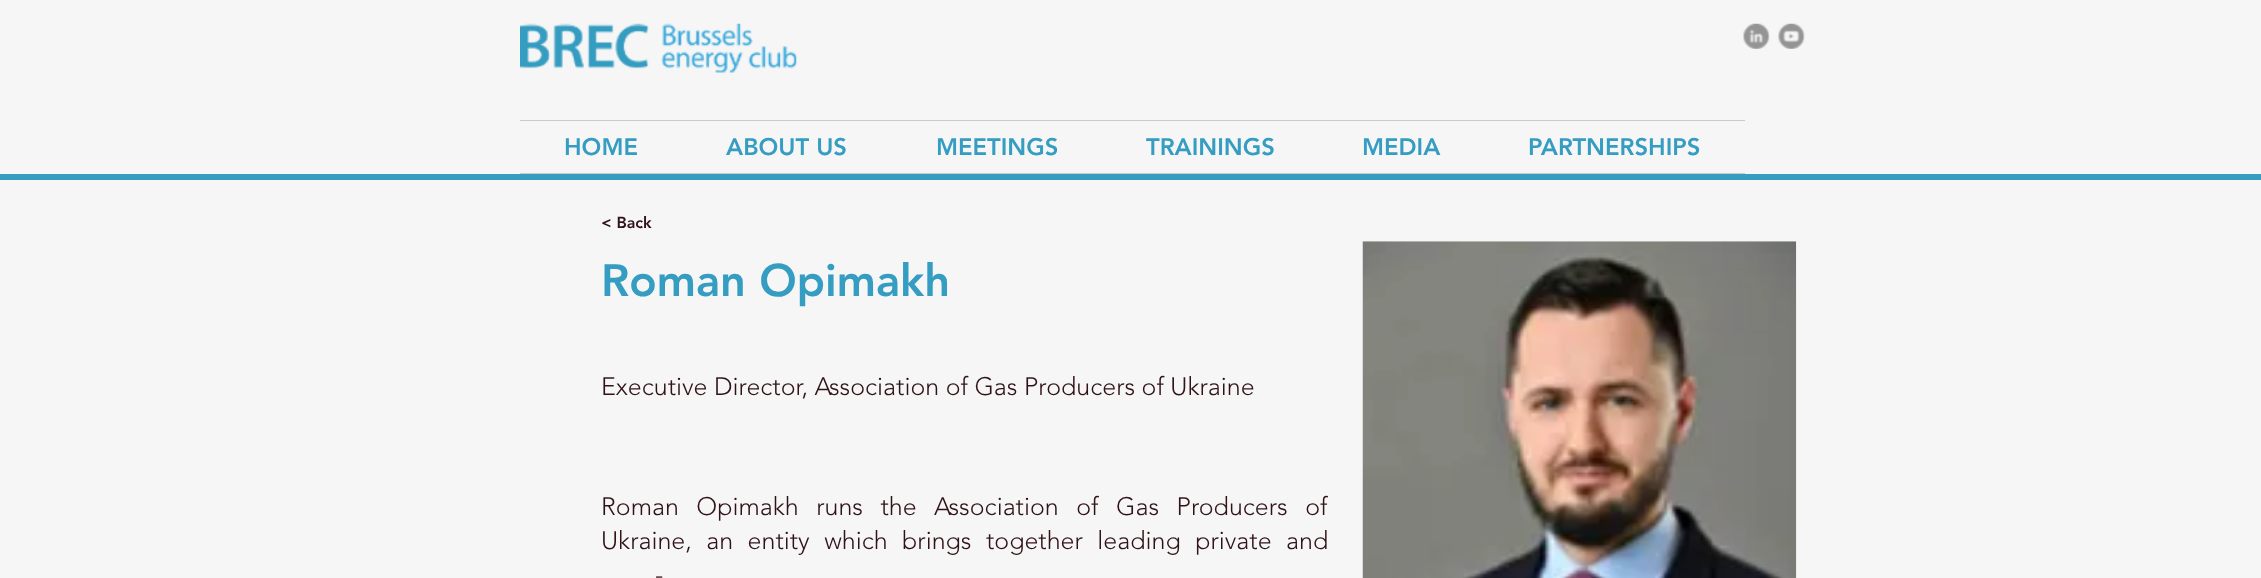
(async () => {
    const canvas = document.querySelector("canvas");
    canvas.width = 2261;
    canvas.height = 578;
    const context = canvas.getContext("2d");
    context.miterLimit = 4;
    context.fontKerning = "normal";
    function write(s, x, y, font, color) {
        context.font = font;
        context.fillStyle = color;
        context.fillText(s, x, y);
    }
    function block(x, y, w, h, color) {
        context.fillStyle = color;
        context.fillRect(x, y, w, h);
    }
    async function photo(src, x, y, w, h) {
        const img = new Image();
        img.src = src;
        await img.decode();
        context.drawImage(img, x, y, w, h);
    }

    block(0, 0, 2261, 578, "rgb(246, 246, 246)");
    await photo("media/1.png", 520, 23, 277, 50);
    await photo("media/2.png", 1743, 23, 27, 26);
    await photo("media/3.png", 1778, 23, 27, 26);
    block(520, 120, 1225, 1, "rgb(202, 202, 202)");
    block(520, 173, 1225, 1, "rgb(202, 202, 202)");
    write("HOME", 564, 155, "900 23.75px 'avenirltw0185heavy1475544'", "rgb(52, 157, 193)");
    write("ABOUT US", 726, 155, "900 23.75px 'avenirltw0185heavy1475544'", "rgb(52, 157, 193)");
    write("MEETINGS", 936, 155, "900 23.75px 'avenirltw0185heavy1475544'", "rgb(52, 157, 193)");
    write("TRAININGS", 1146, 155, "900 23.75px 'avenirltw0185heavy1475544'", "rgb(52, 157, 193)");
    write("MEDIA", 1362, 155, "900 23.75px 'avenirltw0185heavy1475544'", "rgb(52, 157, 193)");
    write("PARTNERSHIPS", 1528, 155, "900 23.75px 'avenirltw0185heavy1475544'", "rgb(52, 157, 193)");
    block(0, 174, 2261, 6, "rgb(52, 157, 193)");
    write("< Back", 601, 228, "900 16px 'avenirltw0185heavy1475544'", "rgb(48, 19, 24)");
    write("Roman Opimakh", 601, 296, "900 45px 'avenirltw0185heavy1475544'", "rgb(52, 157, 193)");
    write("Executive Director, Association of Gas Producers of Ukraine", 601, 395, "300 25px 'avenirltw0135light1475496'", "rgb(48, 19, 24)");
    context.wordSpacing = "11px";
    write("Roman Opimakh runs the Association of Gas Producers of", 601, 515, "300 25px 'avenirltw0135light1475496'", "rgb(48, 19, 24)");
    context.wordSpacing = "8px";
    write("Ukraine, an entity which brings together leading private and", 601, 549, "300 25px 'avenirltw0135light1475496'", "rgb(48, 19, 24)");
    context.wordSpacing = "18px";
    write("-", 655, 583, "300 25px 'avenirltw0135light1475496'", "rgb(48, 19, 24)");
    await photo("media/4.png", 1362, 241, 435, 337);
})();
